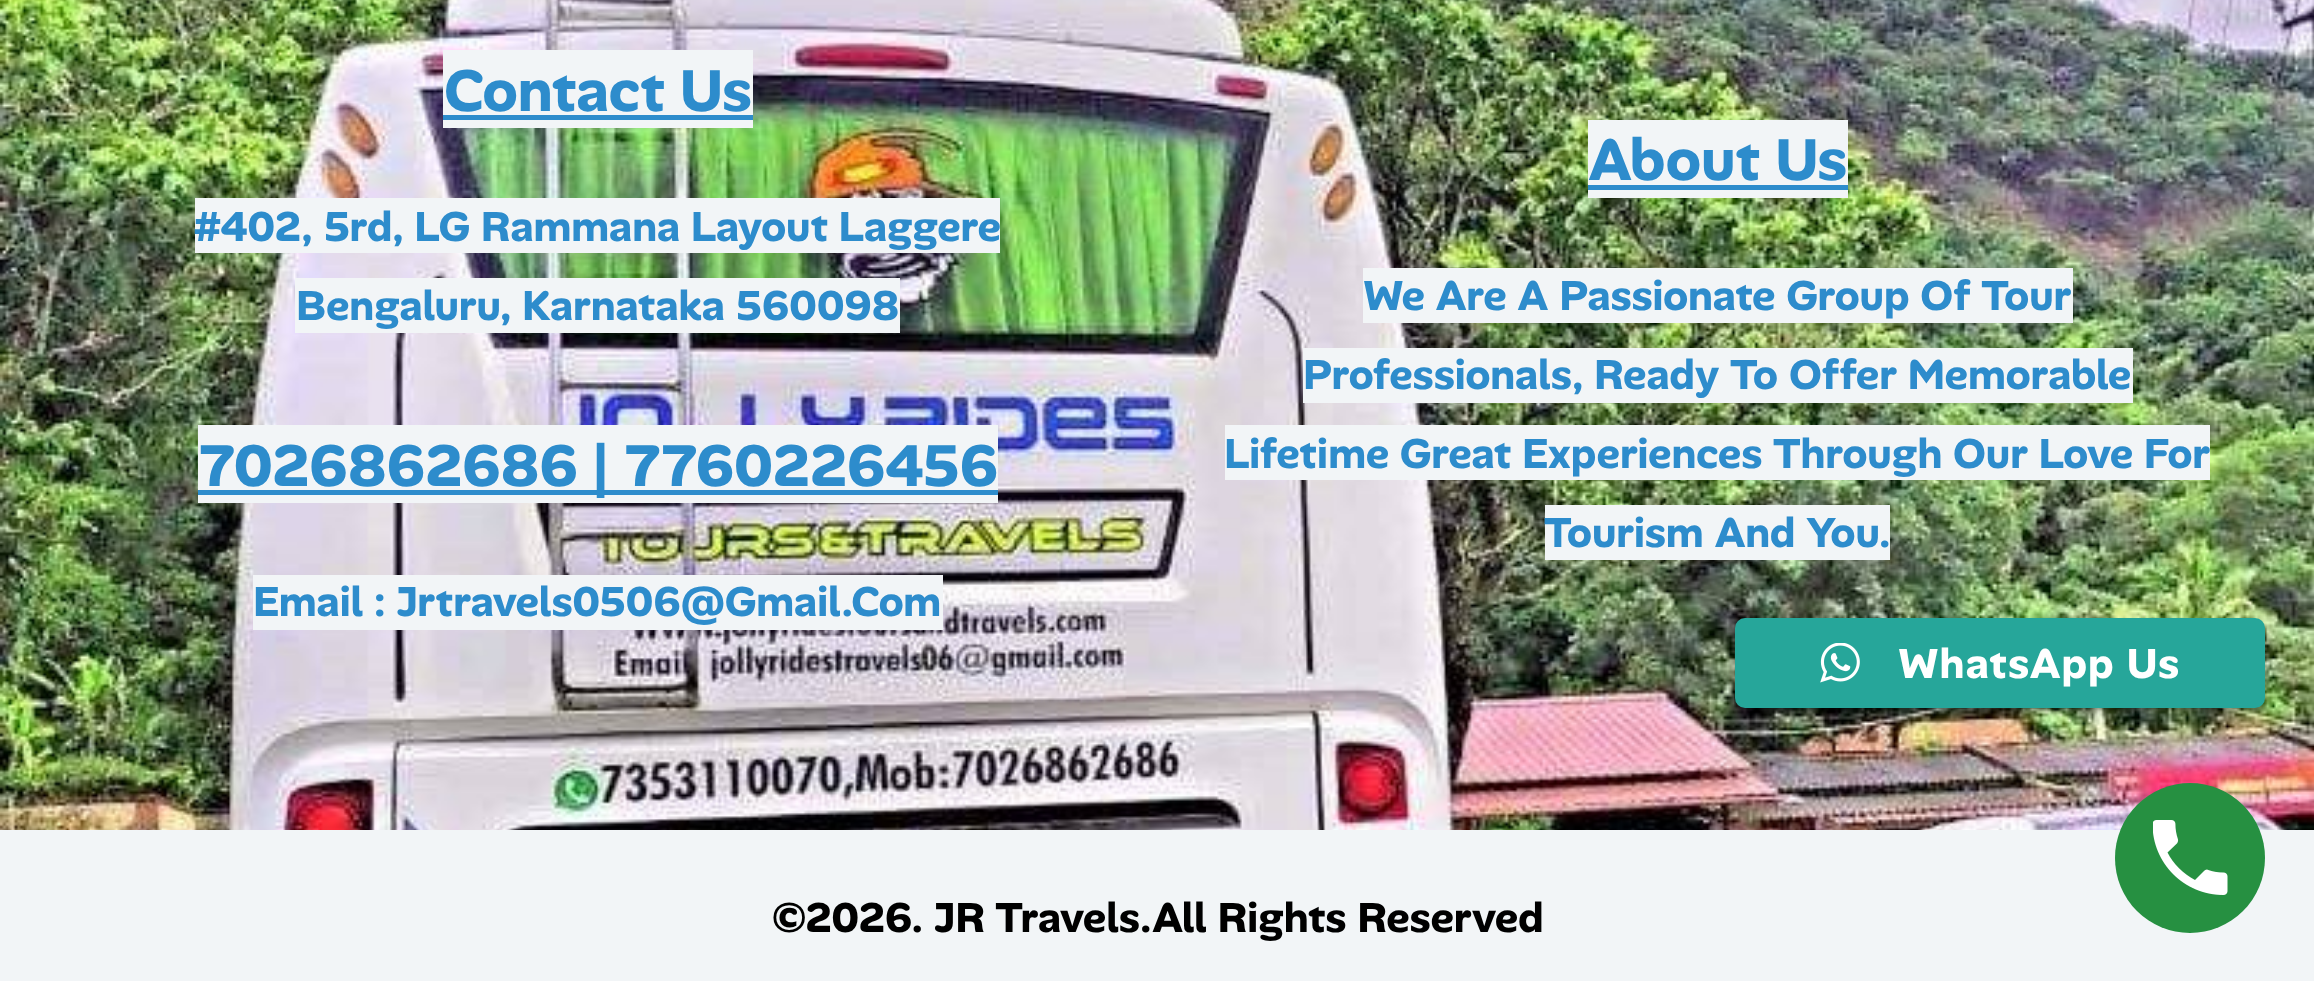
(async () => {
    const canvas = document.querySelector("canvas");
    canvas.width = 2314;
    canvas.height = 981;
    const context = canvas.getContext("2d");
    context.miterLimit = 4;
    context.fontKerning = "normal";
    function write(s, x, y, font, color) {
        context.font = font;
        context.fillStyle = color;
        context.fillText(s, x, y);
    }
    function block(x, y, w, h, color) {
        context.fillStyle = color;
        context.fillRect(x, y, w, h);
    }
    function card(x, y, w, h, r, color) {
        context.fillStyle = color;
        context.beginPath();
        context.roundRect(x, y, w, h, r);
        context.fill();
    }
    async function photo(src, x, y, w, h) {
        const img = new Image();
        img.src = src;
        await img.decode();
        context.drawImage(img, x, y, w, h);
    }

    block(0, 0, 2314, 981, "rgb(242, 245, 247)");
    await photo("media/1.png", 0, 0, 2314, 830);
    block(443, 50, 310, 78, "rgb(242, 245, 247)");
    write("Contact Us", 444, 111, "bold 60px Alan Sans", "rgb(45, 140, 204)");
    block(443, 115, 310, 5, "rgb(45, 140, 204)");
    block(195, 198, 805, 55, "rgb(242, 245, 247)");
    write("#402, 5rd, LG Rammana Layout Laggere", 194, 241, "bold 42.5px Alan Sans", "rgb(45, 140, 204)");
    block(295, 278, 605, 55, "rgb(242, 245, 247)");
    write("Bengaluru, Karnataka 560098", 296, 320, "bold 42.5px Alan Sans", "rgb(45, 140, 204)");
    block(198, 425, 800, 78, "rgb(242, 245, 247)");
    block(198, 490, 800, 5, "rgb(45, 140, 204)");
    write("7026862686 | 7760226456", 198, 486, "bold 60px Alan Sans", "rgb(45, 140, 204)");
    block(253, 575, 690, 55, "rgb(242, 245, 247)");
    write("Email : Jrtravels0506@Gmail.Com", 253, 616, "bold 42.5px Alan Sans", "rgb(45, 140, 204)");
    block(1588, 120, 260, 78, "rgb(242, 245, 247)");
    write("About Us", 1588, 180, "bold 60px Alan Sans", "rgb(45, 140, 204)");
    block(1588, 185, 260, 5, "rgb(45, 140, 204)");
    block(1363, 268, 710, 55, "rgb(242, 245, 247)");
    write("We Are A Passionate Group Of Tour", 1363, 310, "bold 42.5px Alan Sans", "rgb(45, 140, 204)");
    block(1303, 348, 830, 55, "rgb(242, 245, 247)");
    write("Professionals, Ready To Offer Memorable", 1303, 389, "bold 42.5px Alan Sans", "rgb(45, 140, 204)");
    block(1225, 425, 985, 55, "rgb(242, 245, 247)");
    write("Lifetime Great Experiences Through Our Love For", 1224, 468, "bold 42.5px Alan Sans", "rgb(45, 140, 204)");
    block(1545, 505, 345, 55, "rgb(242, 245, 247)");
    write("Tourism And You.", 1544, 547, "bold 42.5px Alan Sans", "rgb(45, 140, 204)");
    write("©2026. JR Travels.All Rights Reserved", 772, 932, "bold 42.5px Alan Sans", "rgb(0, 0, 0)");
    context.fillStyle = "rgba(0, 0, 0, 0.2)";
    context.filter = "blur(1px)";
    context.beginPath();
    context.roundRect(1740, 630, 520, 80, 5);
    context.fill();
    context.filter = "none";
    context.fillStyle = "rgba(0, 0, 0, 0.12)";
    context.filter = "blur(6px)";
    context.beginPath();
    context.roundRect(1735, 620, 530, 90, 10);
    context.fill();
    context.filter = "none";
    context.fillStyle = "rgba(0, 0, 0, 0.14)";
    context.filter = "blur(2.5px)";
    context.beginPath();
    context.roundRect(1735, 623, 530, 90, 10);
    context.fill();
    context.filter = "none";
    card(1735, 618, 530, 90, 10, "rgb(38, 166, 154)");
    await photo("media/2.png", 1820, 643, 40, 40);
    context.letterSpacing = "1.25px";
    write("WhatsApp Us", 1898, 678, "bold 42.5px Alan Sans", "rgb(255, 255, 255)");
    context.fillStyle = "rgb(38, 144, 65)";
    context.beginPath();
    context.arc(2190, 858, 75, 0, Math.PI * 2);
    context.fill();
    await photo("media/3.png", 2153, 820, 75, 75);
})();
